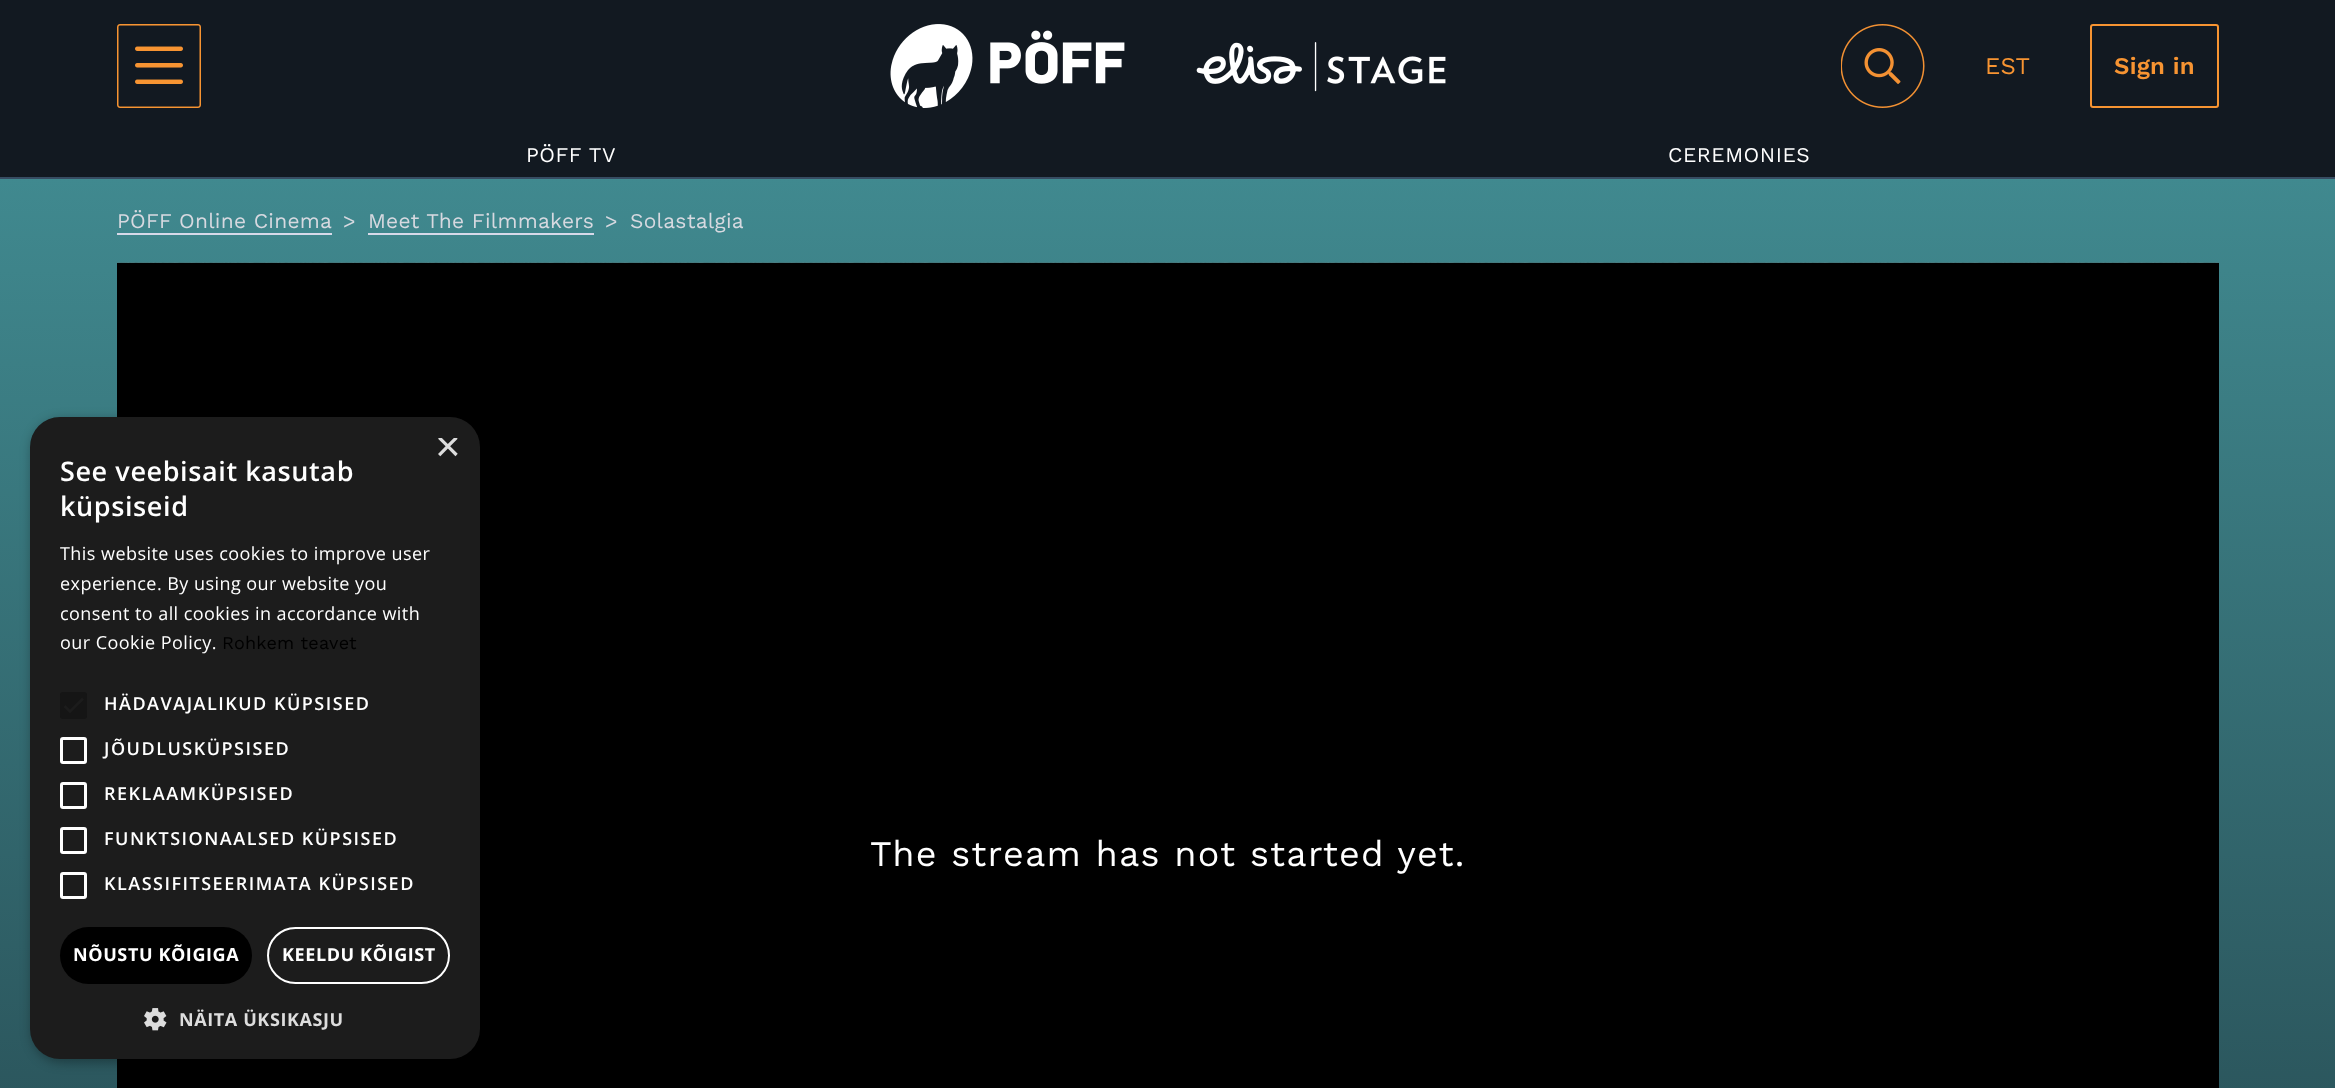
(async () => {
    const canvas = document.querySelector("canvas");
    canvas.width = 2335;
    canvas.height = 1088;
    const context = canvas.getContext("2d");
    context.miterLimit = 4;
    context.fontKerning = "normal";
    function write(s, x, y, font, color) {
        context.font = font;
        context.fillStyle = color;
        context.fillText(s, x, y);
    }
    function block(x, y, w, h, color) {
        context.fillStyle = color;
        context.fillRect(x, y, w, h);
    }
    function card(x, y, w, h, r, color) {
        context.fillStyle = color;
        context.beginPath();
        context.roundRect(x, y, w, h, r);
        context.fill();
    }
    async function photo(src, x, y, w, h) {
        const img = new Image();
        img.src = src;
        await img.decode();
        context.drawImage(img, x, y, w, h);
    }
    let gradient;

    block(0, 0, 2335, 1088, "rgb(18, 25, 33)");
    await photo("media/1.png", 117, 24, 84, 84);
    await photo("media/2.png", 890, 24, 556, 84);
    await photo("media/3.png", 1841, 24, 84, 84);
    context.letterSpacing = "0.25px";
    write("EST", 1985, 74, "24px Work Sans", "rgb(247, 148, 50)");
    context.beginPath();
    context.roundRect(2091, 25, 127, 82, 2);
    context.strokeStyle = "rgb(247, 148, 50)";
    context.lineWidth = 2;
    context.stroke();
    write("Sign in", 2114, 74, "600 24px Work Sans", "rgb(247, 148, 50)");
    block(0, 177, 2335, 2, "rgb(55, 76, 98)");
    context.letterSpacing = "0.5px";
    write("PÖFF TV", 526, 162, "21px Work Sans", "rgb(255, 255, 255)");
    write("CEREMONIES", 1668, 162, "21px Work Sans", "rgb(255, 255, 255)");
    gradient = context.createLinearGradient(1168, 178, 1168, 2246);
    gradient.addColorStop(0, "rgb(64, 137, 143)");
    gradient.addColorStop(1, "rgb(18, 24, 32)");
    context.fillStyle = gradient;
    context.fillRect(0, 179, 2335, 909);
    context.letterSpacing = "0.25px";
    write("PÖFF Online Cinema", 117, 228, "21px Work Sans", "rgb(215, 217, 224)");
    block(117, 233, 215, 2, "rgb(215, 217, 233)");
    write(">", 343, 228, "21px Work Sans", "rgb(215, 217, 224)");
    write("Meet The Filmmakers", 368, 228, "21px Work Sans", "rgb(215, 217, 224)");
    block(368, 233, 226, 2, "rgb(215, 217, 233)");
    write(">", 605, 228, "21px Work Sans", "rgb(215, 217, 224)");
    write("Solastalgia", 630, 228, "21px Work Sans", "rgb(215, 217, 224)");
    await photo("media/4.png", 117, 262, 2102, 1);
    block(117, 263, 2102, 825, "rgb(0, 0, 0)");
    context.letterSpacing = "1.2px";
    write("The stream has not started yet.", 870, 866, "36px Work Sans", "rgb(255, 255, 255)");
    context.fillStyle = "rgba(0, 0, 0, 0.35)";
    context.filter = "blur(6px)";
    context.beginPath();
    context.roundRect(32, 420, 450, 642, 30);
    context.fill();
    context.filter = "none";
    card(30, 417, 450, 642, 30, "rgb(28, 28, 28)");
    context.save();
    context.beginPath();
    context.rect(435, 438, 23, 23);
    context.clip();
    context.letterSpacing = "0px";
    write("×", 435, 461, "44px Liberation Sans", "rgb(221, 221, 221)");
    context.restore();
    context.letterSpacing = "0.6px";
    write("See veebisait kasutab", 60, 481, "600 27px Open Sans", "rgb(255, 255, 255)");
    write("küpsiseid", 60, 516, "600 27px Open Sans", "rgb(255, 255, 255)");
    context.letterSpacing = "0.45px";
    write("This website uses cookies to improve user", 60, 560, "18px Open Sans", "rgb(255, 255, 255)");
    write("experience. By using our website you", 60, 590, "18px Open Sans", "rgb(255, 255, 255)");
    write("consent to all cookies in accordance with", 60, 620, "18px Open Sans", "rgb(255, 255, 255)");
    write("our Cookie Policy.", 60, 649, "18px Open Sans", "rgb(255, 255, 255)");
    context.letterSpacing = "0.25px";
    write("Rohkem teavet", 222, 649, "18px Work Sans", "rgb(0, 0, 0)");
    card(60, 692, 27, 27, 3, "rgb(21, 21, 21)");
    context.beginPath();
    context.moveTo(64.5, 706);
    context.lineTo(70, 711.5);
    context.lineTo(83, 698.5);
    context.strokeStyle = "rgb(28, 28, 28)";
    context.lineWidth = 2.7;
    context.stroke();
    context.letterSpacing = "1.5px";
    write("HÄDAVAJALIKUD KÜPSISED", 104, 710, "600 18px Open Sans", "rgb(255, 255, 255)");
    context.beginPath();
    context.roundRect(61.5, 738.5, 24, 24, 1.5);
    context.strokeStyle = "rgb(255, 255, 255)";
    context.lineWidth = 3;
    context.stroke();
    write("JÕUDLUSKÜPSISED", 104, 755, "600 18px Open Sans", "rgb(255, 255, 255)");
    context.beginPath();
    context.roundRect(61.5, 783.5, 24, 24, 1.5);
    context.stroke();
    write("REKLAAMKÜPSISED", 104, 800, "600 18px Open Sans", "rgb(255, 255, 255)");
    context.beginPath();
    context.roundRect(61.5, 828.5, 24, 24, 1.5);
    context.stroke();
    write("FUNKTSIONAALSED KÜPSISED", 104, 845, "600 18px Open Sans", "rgb(255, 255, 255)");
    context.beginPath();
    context.roundRect(61.5, 873.5, 24, 24, 1.5);
    context.stroke();
    write("KLASSIFITSEERIMATA KÜPSISED", 104, 890, "600 18px Open Sans", "rgb(255, 255, 255)");
    card(60, 927, 192, 57, 28.5, "rgb(0, 0, 0)");
    context.letterSpacing = "0.6px";
    write("NÕUSTU KÕIGIGA", 73, 961, "bold 18px Open Sans", "rgb(255, 255, 255)");
    context.beginPath();
    context.roundRect(268, 928, 181, 55, 27.5);
    context.lineWidth = 2;
    context.stroke();
    write("KEELDU KÕIGIST", 282, 961, "bold 18px Open Sans", "rgb(255, 255, 255)");
    await photo("media/5.png", 144, 1008, 23, 23);
    write("NÄITA ÜKSIKASJU", 179, 1026, "bold 18px Open Sans", "rgb(221, 221, 221)");
})();
